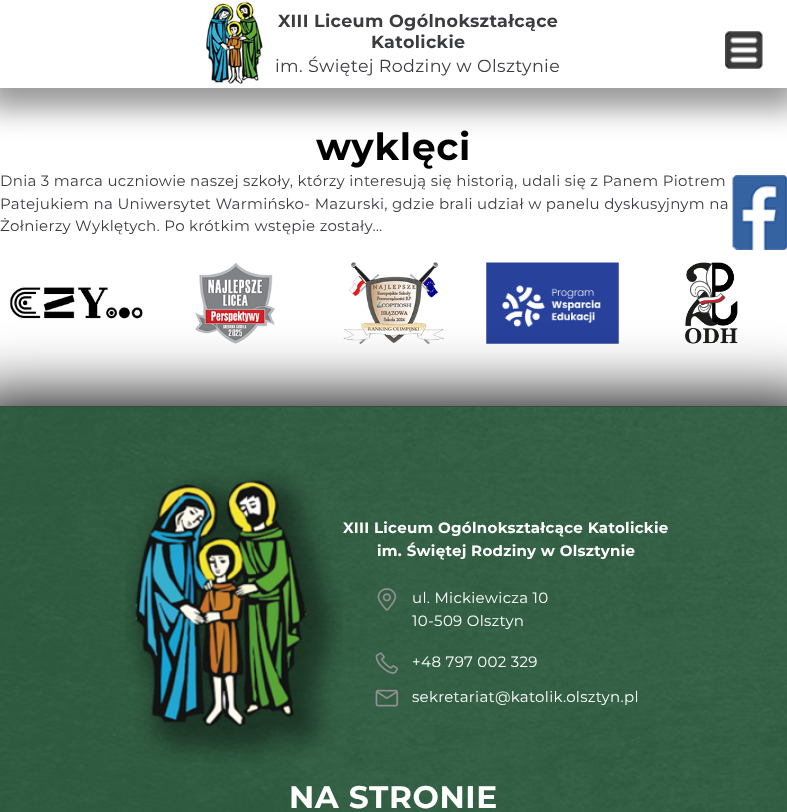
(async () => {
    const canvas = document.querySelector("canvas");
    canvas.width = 787;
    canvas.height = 812;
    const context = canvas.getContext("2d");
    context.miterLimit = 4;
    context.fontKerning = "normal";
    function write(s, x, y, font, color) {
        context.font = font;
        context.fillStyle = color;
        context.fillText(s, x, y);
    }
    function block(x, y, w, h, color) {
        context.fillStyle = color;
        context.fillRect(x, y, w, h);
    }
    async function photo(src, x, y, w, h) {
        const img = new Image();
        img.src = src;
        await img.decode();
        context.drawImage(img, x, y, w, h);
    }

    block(0, 0, 787, 812, "rgb(255, 255, 255)");
    context.fillStyle = "rgba(0, 0, 0, 0.4)";
    context.filter = "blur(14.5px)";
    context.beginPath();
    context.rect(-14, -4, 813, 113);
    context.fill();
    context.filter = "none";
    block(0, 0, 787, 88, "rgb(255, 255, 255)");
    await photo("media/1.png", 206, 2, 57, 82);
    context.letterSpacing = "0.35px";
    write("XIII Liceum Ogólnokształcące", 278, 27, "bold 17.5px Montserrat", "rgb(59, 60, 64)");
    write("Katolickie", 371, 48, "bold 17.5px Montserrat", "rgb(59, 60, 64)");
    write("im. Świętej Rodziny w Olsztynie", 275, 72, "17.5px Montserrat", "rgb(59, 60, 64)");
    await photo("media/2.png", 725, 31, 38, 38);
    context.letterSpacing = "0.75px";
    write("wyklęci", 316, 160, "bold 37.5px Montserrat", "rgb(0, 0, 0)");
    context.letterSpacing = "0.3px";
    write("Dnia 3 marca uczniowie naszej szkoły, którzy interesują się historią, udali się z Panem Piotrem", 0, 186, "15px Montserrat", "rgb(59, 60, 64)");
    write("Patejukiem na Uniwersytet Warmińsko- Mazurski, gdzie brali udział w panelu dyskusyjnym na", 0, 209, "15px Montserrat", "rgb(59, 60, 64)");
    write("Żołnierzy Wyklętych. Po krótkim wstępie zostały…", 0, 231, "15px Montserrat", "rgb(59, 60, 64)");
    await photo("media/3.png", 9, 287, 134, 32);
    await photo("media/4.png", 195, 262, 80, 82);
    await photo("media/5.png", 343, 262, 101, 82);
    await photo("media/6.png", 486, 262, 133, 82);
    await photo("media/7.png", 685, 262, 53, 82);
    context.fillStyle = "rgba(0, 0, 0, 0.9)";
    context.filter = "blur(31px)";
    context.beginPath();
    context.rect(-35, 396, 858, 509);
    context.fill();
    context.filter = "none";
    await photo("media/8.png", 0, 406, 787, 406);
    block(0, 406, 787, 1, "rgba(0, 0, 0, 0.2)");
    await photo("media/9.png", 125, 470, 218, 293);
    write("XIII Liceum Ogólnokształcące Katolickie", 343, 533, "bold 15px Montserrat", "rgb(255, 255, 255)");
    write("im. Świętej Rodziny w Olsztynie", 377, 556, "bold 15px Montserrat", "rgb(255, 255, 255)");
    await photo("media/10.png", 377, 588, 20, 23);
    write("ul. Mickiewicza 10", 412, 603, "15px Montserrat", "rgb(255, 255, 255)");
    write("10-509 Olsztyn", 412, 626, "15px Montserrat", "rgb(255, 255, 255)");
    await photo("media/11.png", 375, 652, 23, 22);
    write("+48 797 002 329", 412, 667, "15px Montserrat", "rgb(255, 255, 255)");
    await photo("media/12.png", 375, 689, 24, 18);
    write("sekretariat@katolik.olsztyn.pl", 412, 702, "15px Montserrat", "rgb(255, 255, 255)");
    context.letterSpacing = "0.6px";
    write("NA STRONIE", 289, 808, "bold 31.25px Montserrat", "rgb(255, 255, 255)");
    await photo("media/13.png", 732, 175, 55, 75);
})();
